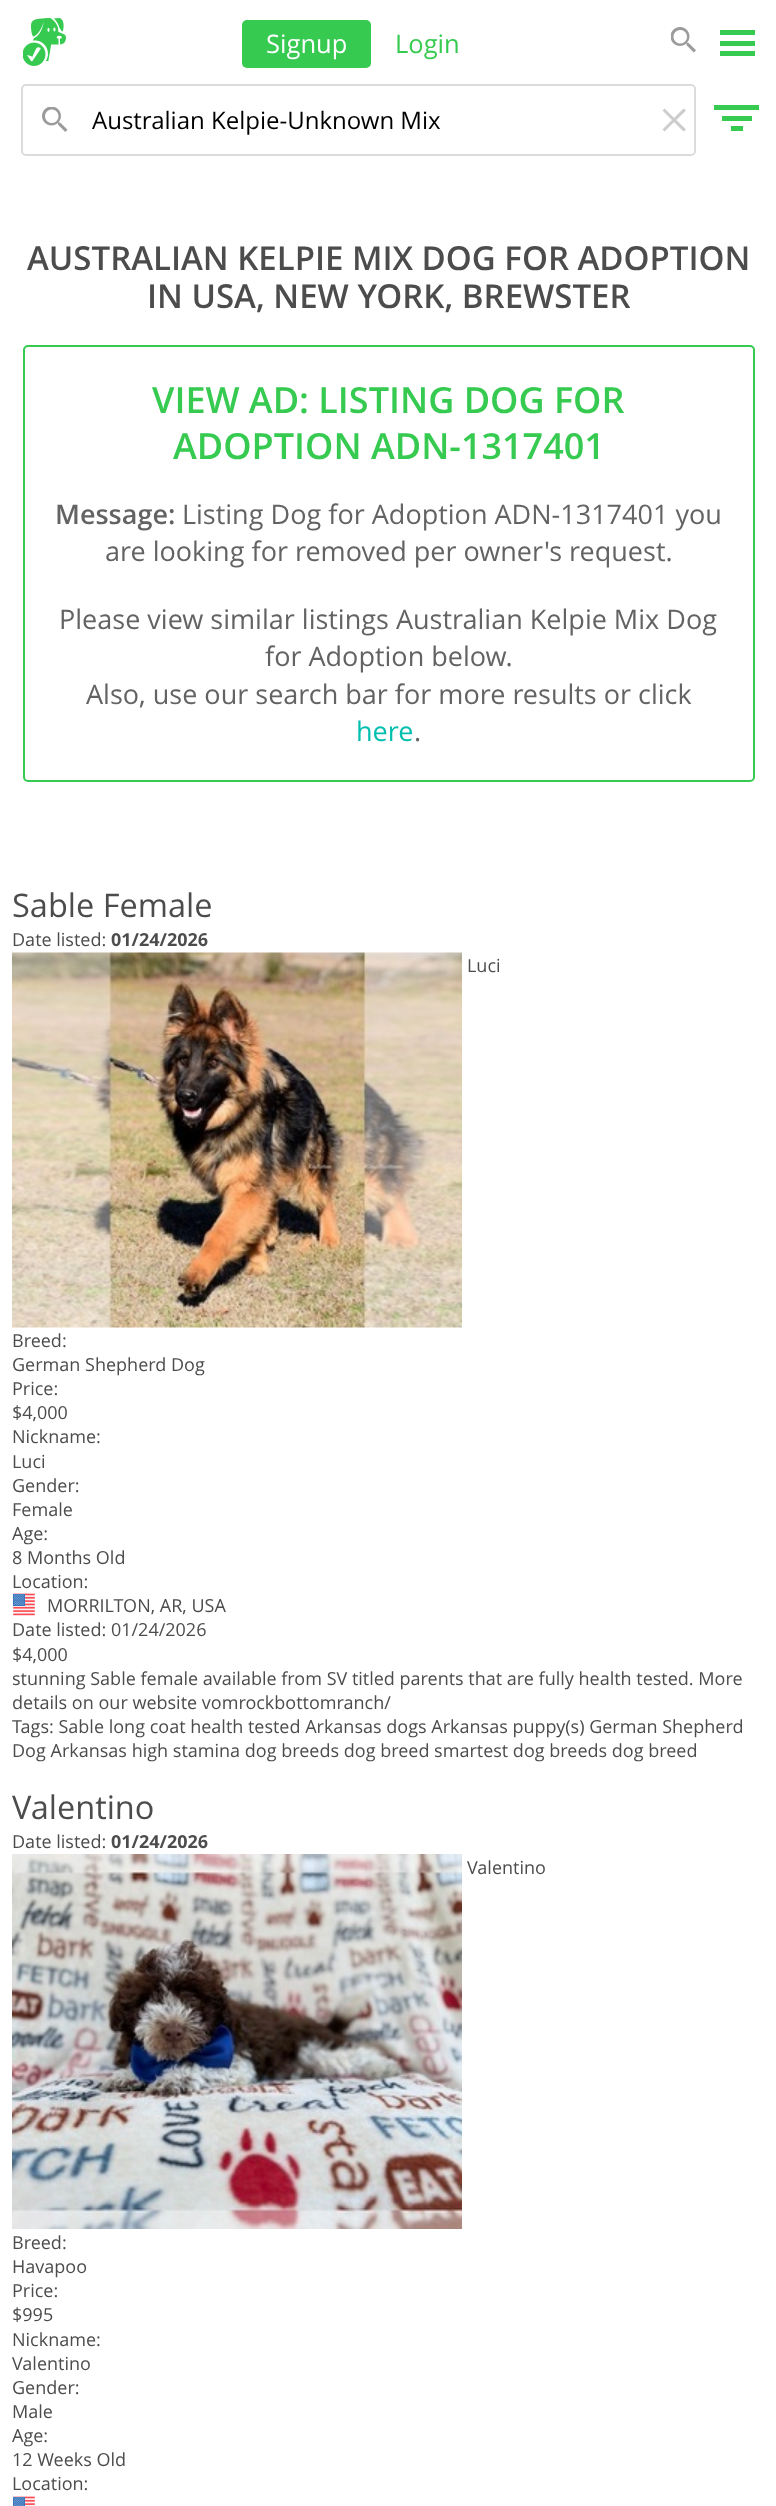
(async () => {
    const canvas = document.querySelector("canvas");
    canvas.width = 776;
    canvas.height = 2506;
    const context = canvas.getContext("2d");
    context.miterLimit = 4;
    context.fontKerning = "normal";
    function write(s, x, y, font, color) {
        context.font = font;
        context.fillStyle = color;
        context.fillText(s, x, y);
    }
    function block(x, y, w, h, color) {
        context.fillStyle = color;
        context.fillRect(x, y, w, h);
    }
    function card(x, y, w, h, r, color) {
        context.fillStyle = color;
        context.beginPath();
        context.roundRect(x, y, w, h, r);
        context.fill();
    }
    async function photo(src, x, y, w, h) {
        const img = new Image();
        img.src = src;
        await img.decode();
        context.drawImage(img, x, y, w, h);
    }

    block(0, 0, 776, 2506, "rgb(255, 255, 255)");
    await photo("media/1.png", 23, 18, 43, 48);
    card(242, 20, 129, 48, 5, "rgb(54, 202, 81)");
    write("Signup", 266, 53, "25.5px Open Sans", "rgb(255, 255, 255)");
    write("Login", 395, 53, "25.5px Open Sans", "rgb(54, 202, 81)");
    await photo("media/2.png", 671, 27, 25, 26);
    block(720, 41, 35, 5, "rgb(54, 202, 81)");
    block(720, 30, 35, 5, "rgb(54, 202, 81)");
    block(720, 51, 35, 5, "rgb(54, 202, 81)");
    context.beginPath();
    context.roundRect(22, 85, 673, 70, 4);
    context.strokeStyle = "rgb(219, 219, 219)";
    context.lineWidth = 2;
    context.stroke();
    await photo("media/3.png", 42, 107, 26, 25);
    write("Australian Kelpie-Unknown Mix", 92, 129, "24px Open Sans", "rgb(0, 0, 0)");
    context.fillStyle = "rgb(204, 204, 204)";
    context.beginPath();
    context.moveTo(664.5, 108.5);
    context.lineTo(686, 129.5);
    context.lineTo(683.5, 131.5);
    context.lineTo(662.5, 110.5);
    context.closePath();
    context.fill();
    context.beginPath();
    context.moveTo(662.5, 129.5);
    context.lineTo(683.5, 108.5);
    context.lineTo(686, 110.5);
    context.lineTo(664.5, 131.5);
    context.closePath();
    context.fill();
    block(714, 105, 45, 5, "rgb(54, 202, 81)");
    block(722, 116, 30, 5, "rgb(54, 202, 81)");
    block(731, 126, 12, 5, "rgb(54, 202, 81)");
    write("AUSTRALIAN KELPIE MIX DOG FOR ADOPTION", 27, 270, "600 33px Open Sans", "rgb(76, 76, 76)");
    write("IN USA, NEW YORK, BREWSTER", 147, 308, "600 33px Open Sans", "rgb(76, 76, 76)");
    context.beginPath();
    context.roundRect(24, 346, 730, 435, 4);
    context.strokeStyle = "rgb(54, 202, 81)";
    context.stroke();
    write("VIEW AD: LISTING DOG FOR", 152, 413, "600 36px Open Sans", "rgb(54, 202, 81)");
    write("ADOPTION ADN-1317401", 173, 459, "600 36px Open Sans", "rgb(54, 202, 81)");
    write("Message:", 55, 524, "600 27px Open Sans", "rgb(99, 99, 99)");
    write("Listing Dog for Adoption ADN-1317401 you", 182, 524, "27px Open Sans", "rgb(99, 99, 99)");
    write("are looking for removed per owner's request.", 105, 561, "27px Open Sans", "rgb(99, 99, 99)");
    write("Please view similar listings Australian Kelpie Mix Dog", 59, 629, "27px Open Sans", "rgb(99, 99, 99)");
    write("for Adoption below.", 265, 666, "27px Open Sans", "rgb(99, 99, 99)");
    write("Also, use our search bar for more results or click", 86, 704, "27px Open Sans", "rgb(99, 99, 99)");
    write("here", 356, 741, "27px Open Sans", "rgb(0, 191, 174)");
    write(".", 414, 741, "27px Open Sans", "rgb(99, 99, 99)");
    write("Sable Female", 12, 917, "32.5px Open Sans", "rgb(76, 76, 76)");
    write("Date listed:", 12, 946, "18px Open Sans", "rgb(76, 76, 76)");
    write("01/24/2026", 111, 946, "bold 18px Open Sans", "rgb(76, 76, 76)");
    await photo("media/4.png", 12, 952, 450, 376);
    write("Luci", 467, 972, "18px Open Sans", "rgb(76, 76, 76)");
    write("Breed:", 12, 1347, "18px Open Sans", "rgb(76, 76, 76)");
    write("German Shepherd Dog", 12, 1371, "18px Open Sans", "rgb(76, 76, 76)");
    write("Price:", 12, 1395, "18px Open Sans", "rgb(76, 76, 76)");
    write("$4,000", 12, 1419, "18px Open Sans", "rgb(76, 76, 76)");
    write("Nickname:", 12, 1443, "18px Open Sans", "rgb(76, 76, 76)");
    write("Luci", 12, 1468, "18px Open Sans", "rgb(76, 76, 76)");
    write("Gender:", 12, 1492, "18px Open Sans", "rgb(76, 76, 76)");
    write("Female", 12, 1516, "18px Open Sans", "rgb(76, 76, 76)");
    write("Age:", 12, 1540, "18px Open Sans", "rgb(76, 76, 76)");
    write("8 Months Old", 12, 1564, "18px Open Sans", "rgb(76, 76, 76)");
    write("Location:", 12, 1588, "18px Open Sans", "rgb(76, 76, 76)");
    await photo("media/5.png", 13, 1593, 22, 23);
    write("MORRILTON, AR, USA", 47, 1612, "18px Open Sans", "rgb(76, 76, 76)");
    write("Date listed: 01/24/2026", 12, 1636, "18px Open Sans", "rgb(76, 76, 76)");
    write("$4,000", 12, 1661, "18px Open Sans", "rgb(76, 76, 76)");
    write("stunning Sable female available from SV titled parents that are fully health tested. More", 12, 1685, "18px Open Sans", "rgb(76, 76, 76)");
    write("details on our website vomrockbottomranch/", 12, 1709, "18px Open Sans", "rgb(76, 76, 76)");
    write("Tags: Sable long coat health tested Arkansas dogs Arkansas puppy(s) German Shepherd", 12, 1733, "18px Open Sans", "rgb(76, 76, 76)");
    write("Dog Arkansas high stamina dog breeds dog breed smartest dog breeds dog breed", 12, 1757, "18px Open Sans", "rgb(76, 76, 76)");
    write("Valentino", 12, 1819, "32.5px Open Sans", "rgb(76, 76, 76)");
    write("Date listed:", 12, 1848, "18px Open Sans", "rgb(76, 76, 76)");
    write("01/24/2026", 111, 1848, "bold 18px Open Sans", "rgb(76, 76, 76)");
    await photo("media/6.png", 12, 1854, 450, 375);
    write("Valentino", 467, 1874, "18px Open Sans", "rgb(76, 76, 76)");
    write("Breed:", 12, 2249, "18px Open Sans", "rgb(76, 76, 76)");
    write("Havapoo", 12, 2273, "18px Open Sans", "rgb(76, 76, 76)");
    write("Price:", 12, 2297, "18px Open Sans", "rgb(76, 76, 76)");
    write("$995", 12, 2321, "18px Open Sans", "rgb(76, 76, 76)");
    write("Nickname:", 12, 2346, "18px Open Sans", "rgb(76, 76, 76)");
    write("Valentino", 12, 2370, "18px Open Sans", "rgb(76, 76, 76)");
    write("Gender:", 12, 2394, "18px Open Sans", "rgb(76, 76, 76)");
    write("Male", 12, 2418, "18px Open Sans", "rgb(76, 76, 76)");
    write("Age:", 12, 2442, "18px Open Sans", "rgb(76, 76, 76)");
    write("12 Weeks Old", 12, 2466, "18px Open Sans", "rgb(76, 76, 76)");
    write("Location:", 12, 2490, "18px Open Sans", "rgb(76, 76, 76)");
    await photo("media/7.png", 13, 2496, 22, 10);
})();
